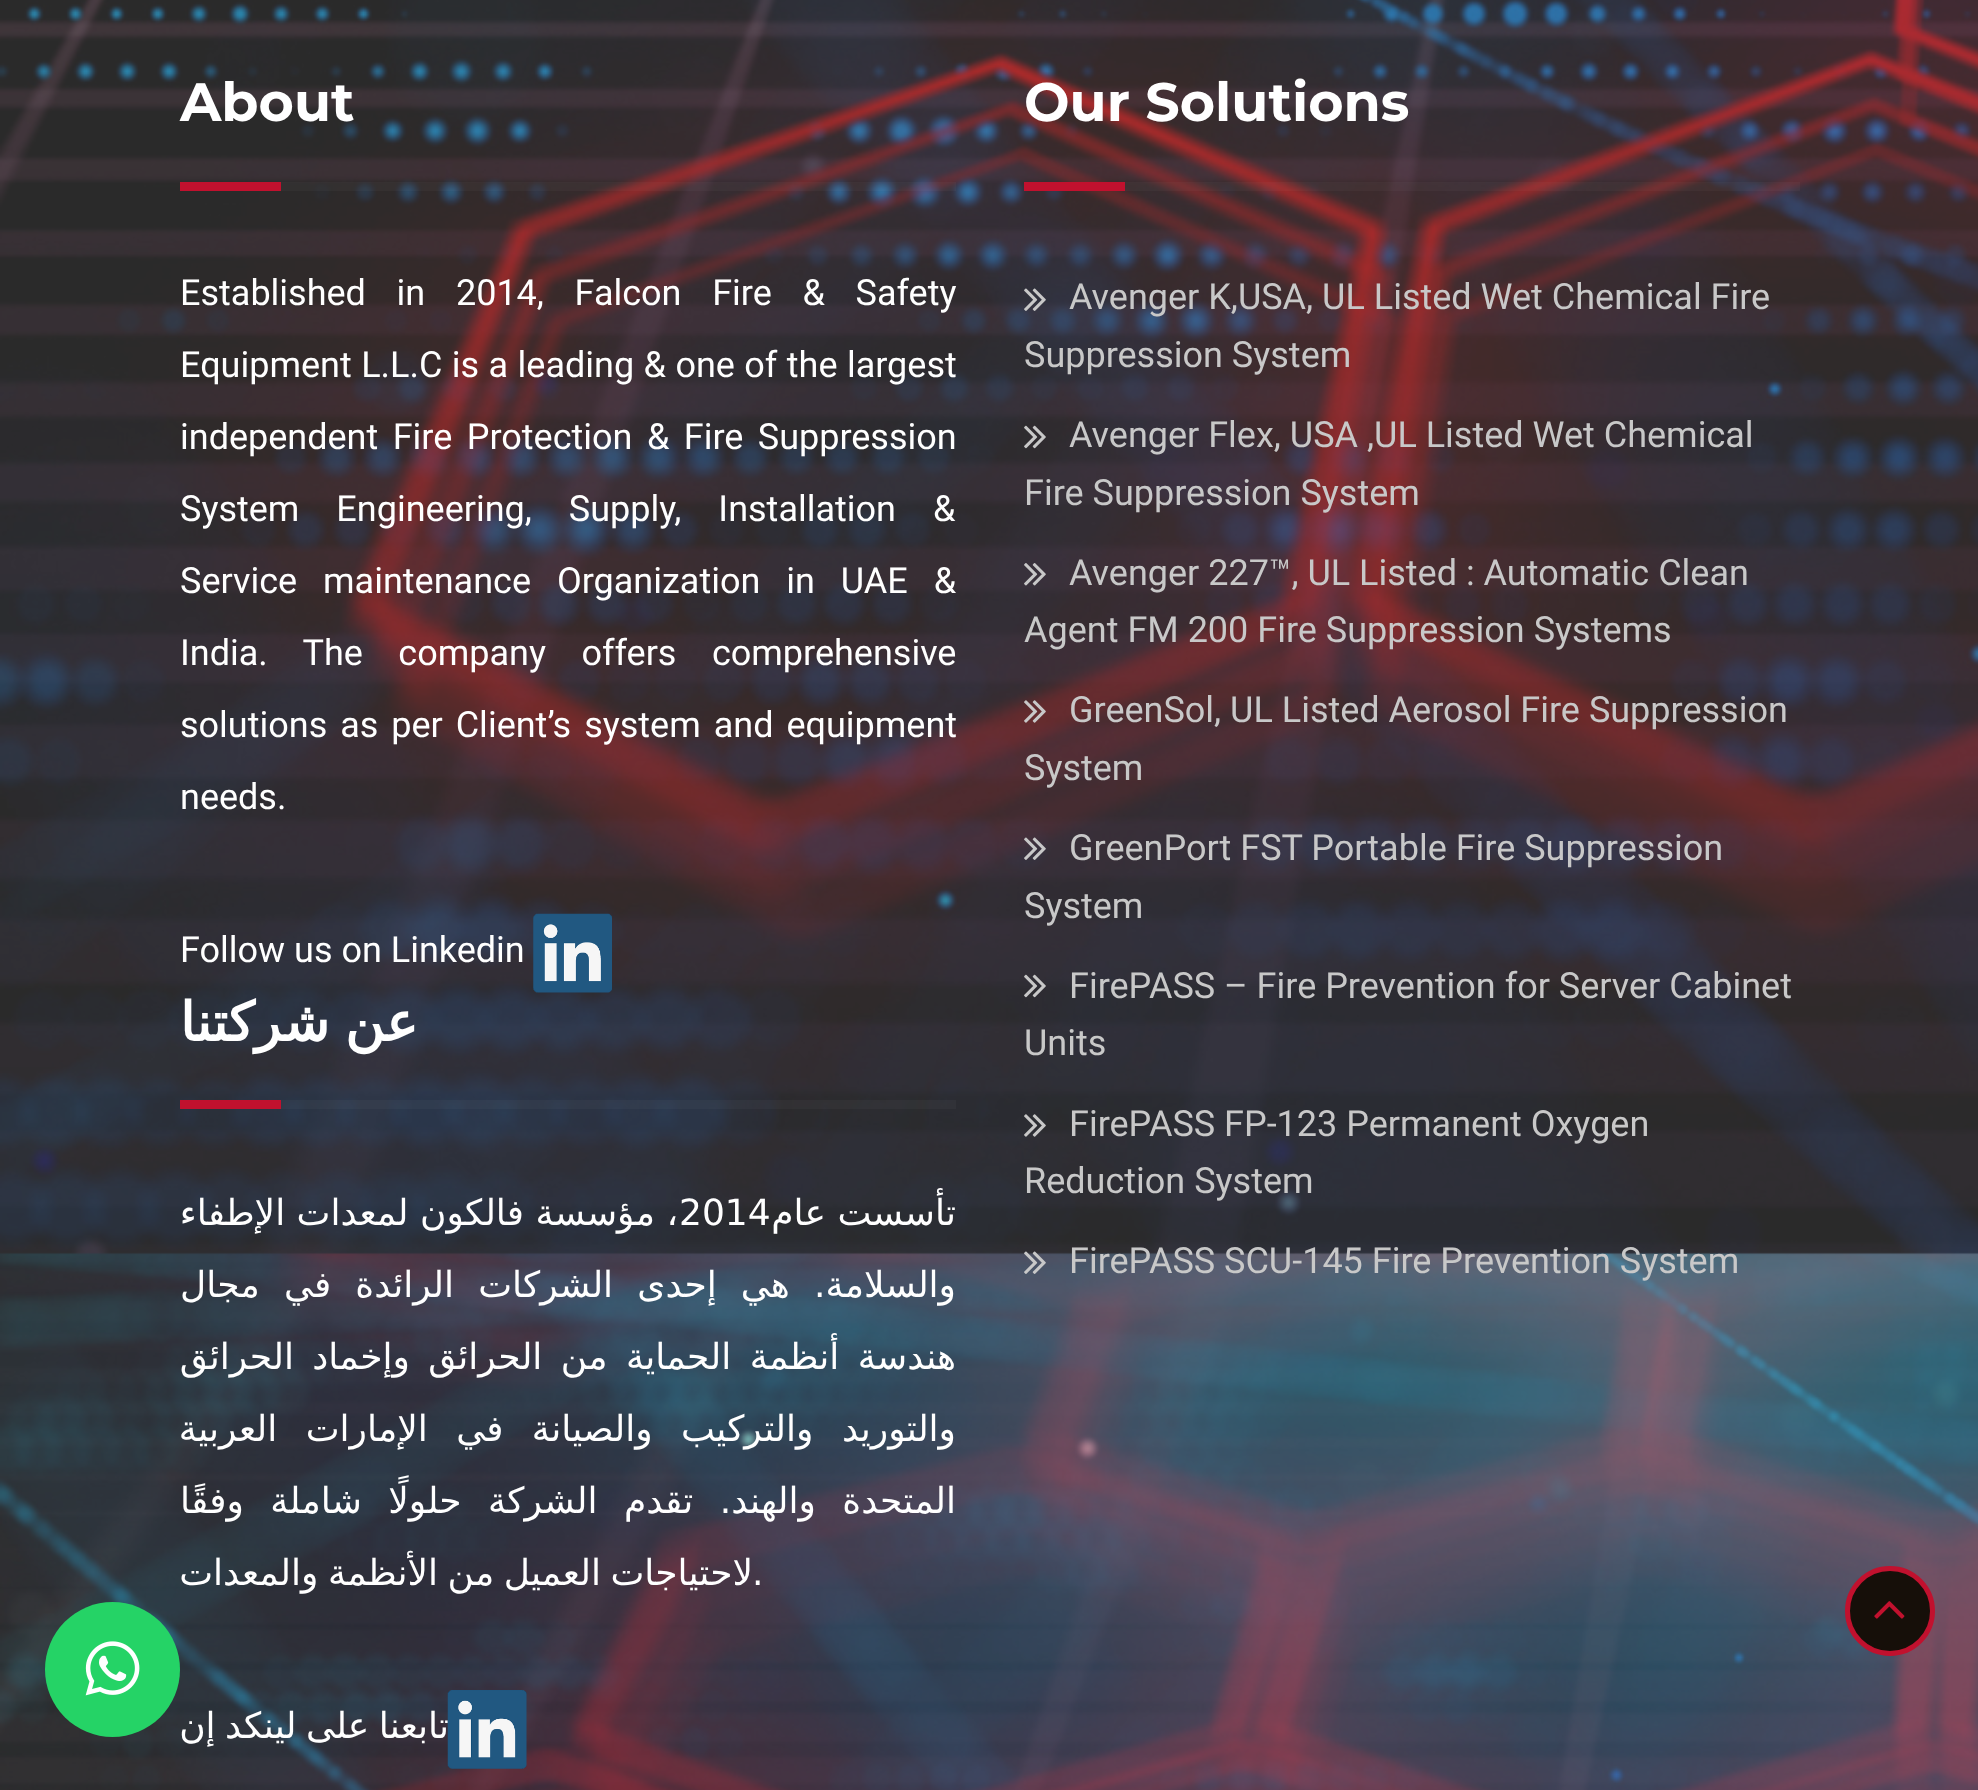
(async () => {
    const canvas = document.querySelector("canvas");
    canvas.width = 1978;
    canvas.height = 1790;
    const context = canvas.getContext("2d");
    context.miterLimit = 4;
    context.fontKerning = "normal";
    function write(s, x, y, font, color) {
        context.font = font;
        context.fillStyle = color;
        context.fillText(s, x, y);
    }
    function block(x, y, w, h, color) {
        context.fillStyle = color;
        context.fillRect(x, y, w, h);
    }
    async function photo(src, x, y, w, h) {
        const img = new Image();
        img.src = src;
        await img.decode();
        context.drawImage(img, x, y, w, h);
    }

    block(0, 0, 1978, 1790, "rgb(255, 255, 255)");
    await photo("media/2.png", 0, 0, 1978, 1790);
    context.fillStyle = "rgb(37, 211, 102)";
    context.beginPath();
    context.arc(112.5, 1669.5, 67.5, 0, Math.PI * 2);
    context.fill();
    await photo("media/1.png", 85, 1641, 55, 55);
    write("About", 180, 121, "bold 54px Montserrat", "rgb(255, 255, 255)");
    block(180, 182, 101, 9, "rgb(193, 17, 46)");
    block(281, 182, 675, 9, "rgba(255, 255, 255, 0.03)");
    context.wordSpacing = "21.75px";
    write("Established in 2014, Falcon Fire & Safety", 180, 305, "36px Roboto", "rgb(255, 255, 255)");
    context.wordSpacing = "0.5px";
    write("Equipment L.L.C is a leading & one of the largest", 180, 377, "36px Roboto", "rgb(255, 255, 255)");
    context.wordSpacing = "5.5px";
    write("independent Fire Protection & Fire Suppression", 180, 449, "36px Roboto", "rgb(255, 255, 255)");
    context.wordSpacing = "28px";
    write("System Engineering, Supply, Installation &", 180, 521, "36px Roboto", "rgb(255, 255, 255)");
    context.wordSpacing = "17px";
    write("Service maintenance Organization in UAE &", 180, 593, "36px Roboto", "rgb(255, 255, 255)");
    context.wordSpacing = "26.5px";
    write("India. The company offers comprehensive", 180, 665, "36px Roboto", "rgb(255, 255, 255)");
    context.wordSpacing = "4px";
    write("solutions as per Client’s system and equipment", 180, 737, "36px Roboto", "rgb(255, 255, 255)");
    context.wordSpacing = "0px";
    write("needs.", 180, 809, "36px Roboto", "rgb(255, 255, 255)");
    write("Follow us on Linkedin", 180, 962, "36px Roboto", "rgb(255, 255, 255)");
    await photo("media/3.png", 533, 913, 79, 80);
    context.wordSpacing = "-2px";
    context.direction = "rtl";
    write("عن شركتنا", 418, 1041, "bold 54px DejaVu Sans", "rgb(255, 255, 255)");
    block(180, 1100, 101, 9, "rgb(193, 17, 46)");
    block(281, 1100, 675, 9, "rgba(255, 255, 255, 0.03)");
    context.wordSpacing = "0px";
    write("، مؤسسة فالكون لمعدات الإطفاء", 678, 1225, "36px DejaVu Sans", "rgb(255, 255, 255)");
    context.direction = "ltr";
    write("2014", 679, 1225, "36px DejaVu Sans", "rgb(255, 255, 255)");
    context.direction = "rtl";
    write("تأسست عام", 956, 1225, "36px DejaVu Sans", "rgb(255, 255, 255)");
    context.wordSpacing = "12.75px";
    write("والسلامة. هي إحدى الشركات الرائدة في مجال", 956, 1297, "36px DejaVu Sans", "rgb(255, 255, 255)");
    context.wordSpacing = "7px";
    write("هندسة أنظمة الحماية من الحرائق وإخماد الحرائق", 956, 1369, "36px DejaVu Sans", "rgb(255, 255, 255)");
    context.wordSpacing = "17px";
    write("والتوريد والتركيب والصيانة في الإمارات العربية", 956, 1441, "36px DejaVu Sans", "rgb(255, 255, 255)");
    context.wordSpacing = "15px";
    write("المتحدة والهند. تقدم الشركة حلولًا شاملة وفقًا", 956, 1513, "36px DejaVu Sans", "rgb(255, 255, 255)");
    context.wordSpacing = "-2px";
    write("لاحتياجات العميل من الأنظمة والمعدات", 753, 1585, "36px DejaVu Sans", "rgb(255, 255, 255)");
    context.wordSpacing = "0px";
    context.direction = "ltr";
    write(".", 752, 1585, "36px DejaVu Sans", "rgb(255, 255, 255)");
    context.wordSpacing = "-2px";
    context.direction = "rtl";
    write("تابعنا على لينكد إن", 449, 1738, "36px DejaVu Sans", "rgb(255, 255, 255)");
    await photo("media/4.png", 447, 1690, 80, 79);
    context.wordSpacing = "0px";
    context.direction = "ltr";
    write("Our Solutions", 1024, 121, "bold 54px Montserrat", "rgb(255, 255, 255)");
    block(1024, 182, 101, 9, "rgb(193, 17, 46)");
    block(1125, 182, 675, 9, "rgba(255, 255, 255, 0.03)");
    await photo("media/5.png", 1024, 288, 22, 23);
    write("Avenger K,USA, UL Listed Wet Chemical Fire", 1069, 309, "36px Roboto", "rgb(200, 200, 200)");
    write("Suppression System", 1024, 367, "36px Roboto", "rgb(200, 200, 200)");
    await photo("media/6.png", 1024, 425, 22, 24);
    write("Avenger Flex, USA ,UL Listed Wet Chemical", 1069, 447, "36px Roboto", "rgb(200, 200, 200)");
    write("Fire Suppression System", 1024, 505, "36px Roboto", "rgb(200, 200, 200)");
    await photo("media/7.png", 1024, 563, 22, 23);
    write("Avenger 227™, UL Listed : Automatic Clean", 1069, 585, "36px Roboto", "rgb(200, 200, 200)");
    write("Agent FM 200 Fire Suppression Systems", 1024, 642, "36px Roboto", "rgb(200, 200, 200)");
    await photo("media/8.png", 1024, 700, 22, 23);
    write("GreenSol, UL Listed Aerosol Fire Suppression", 1069, 722, "36px Roboto", "rgb(200, 200, 200)");
    write("System", 1024, 780, "36px Roboto", "rgb(200, 200, 200)");
    await photo("media/9.png", 1024, 837, 22, 23);
    write("GreenPort FST Portable Fire Suppression", 1069, 860, "36px Roboto", "rgb(200, 200, 200)");
    write("System", 1024, 918, "36px Roboto", "rgb(200, 200, 200)");
    await photo("media/10.png", 1024, 974, 22, 24);
    write("FirePASS – Fire Prevention for Server Cabinet", 1069, 998, "36px Roboto", "rgb(200, 200, 200)");
    write("Units", 1024, 1055, "36px Roboto", "rgb(200, 200, 200)");
    await photo("media/11.png", 1024, 1114, 22, 23);
    write("FirePASS FP-123 Permanent Oxygen", 1069, 1136, "36px Roboto", "rgb(200, 200, 200)");
    write("Reduction System", 1024, 1193, "36px Roboto", "rgb(200, 200, 200)");
    await photo("media/12.png", 1024, 1251, 22, 23);
    write("FirePASS SCU-145 Fire Prevention System", 1069, 1273, "36px Roboto", "rgb(200, 200, 200)");
    context.fillStyle = "rgb(22, 15, 9)";
    context.beginPath();
    context.arc(1890, 1611, 42.5, 0, Math.PI * 2);
    context.fill();
    context.strokeStyle = "rgb(193, 17, 46)";
    context.lineWidth = 5;
    context.stroke();
    await photo("media/13.png", 1874, 1601, 31, 18);
})();
